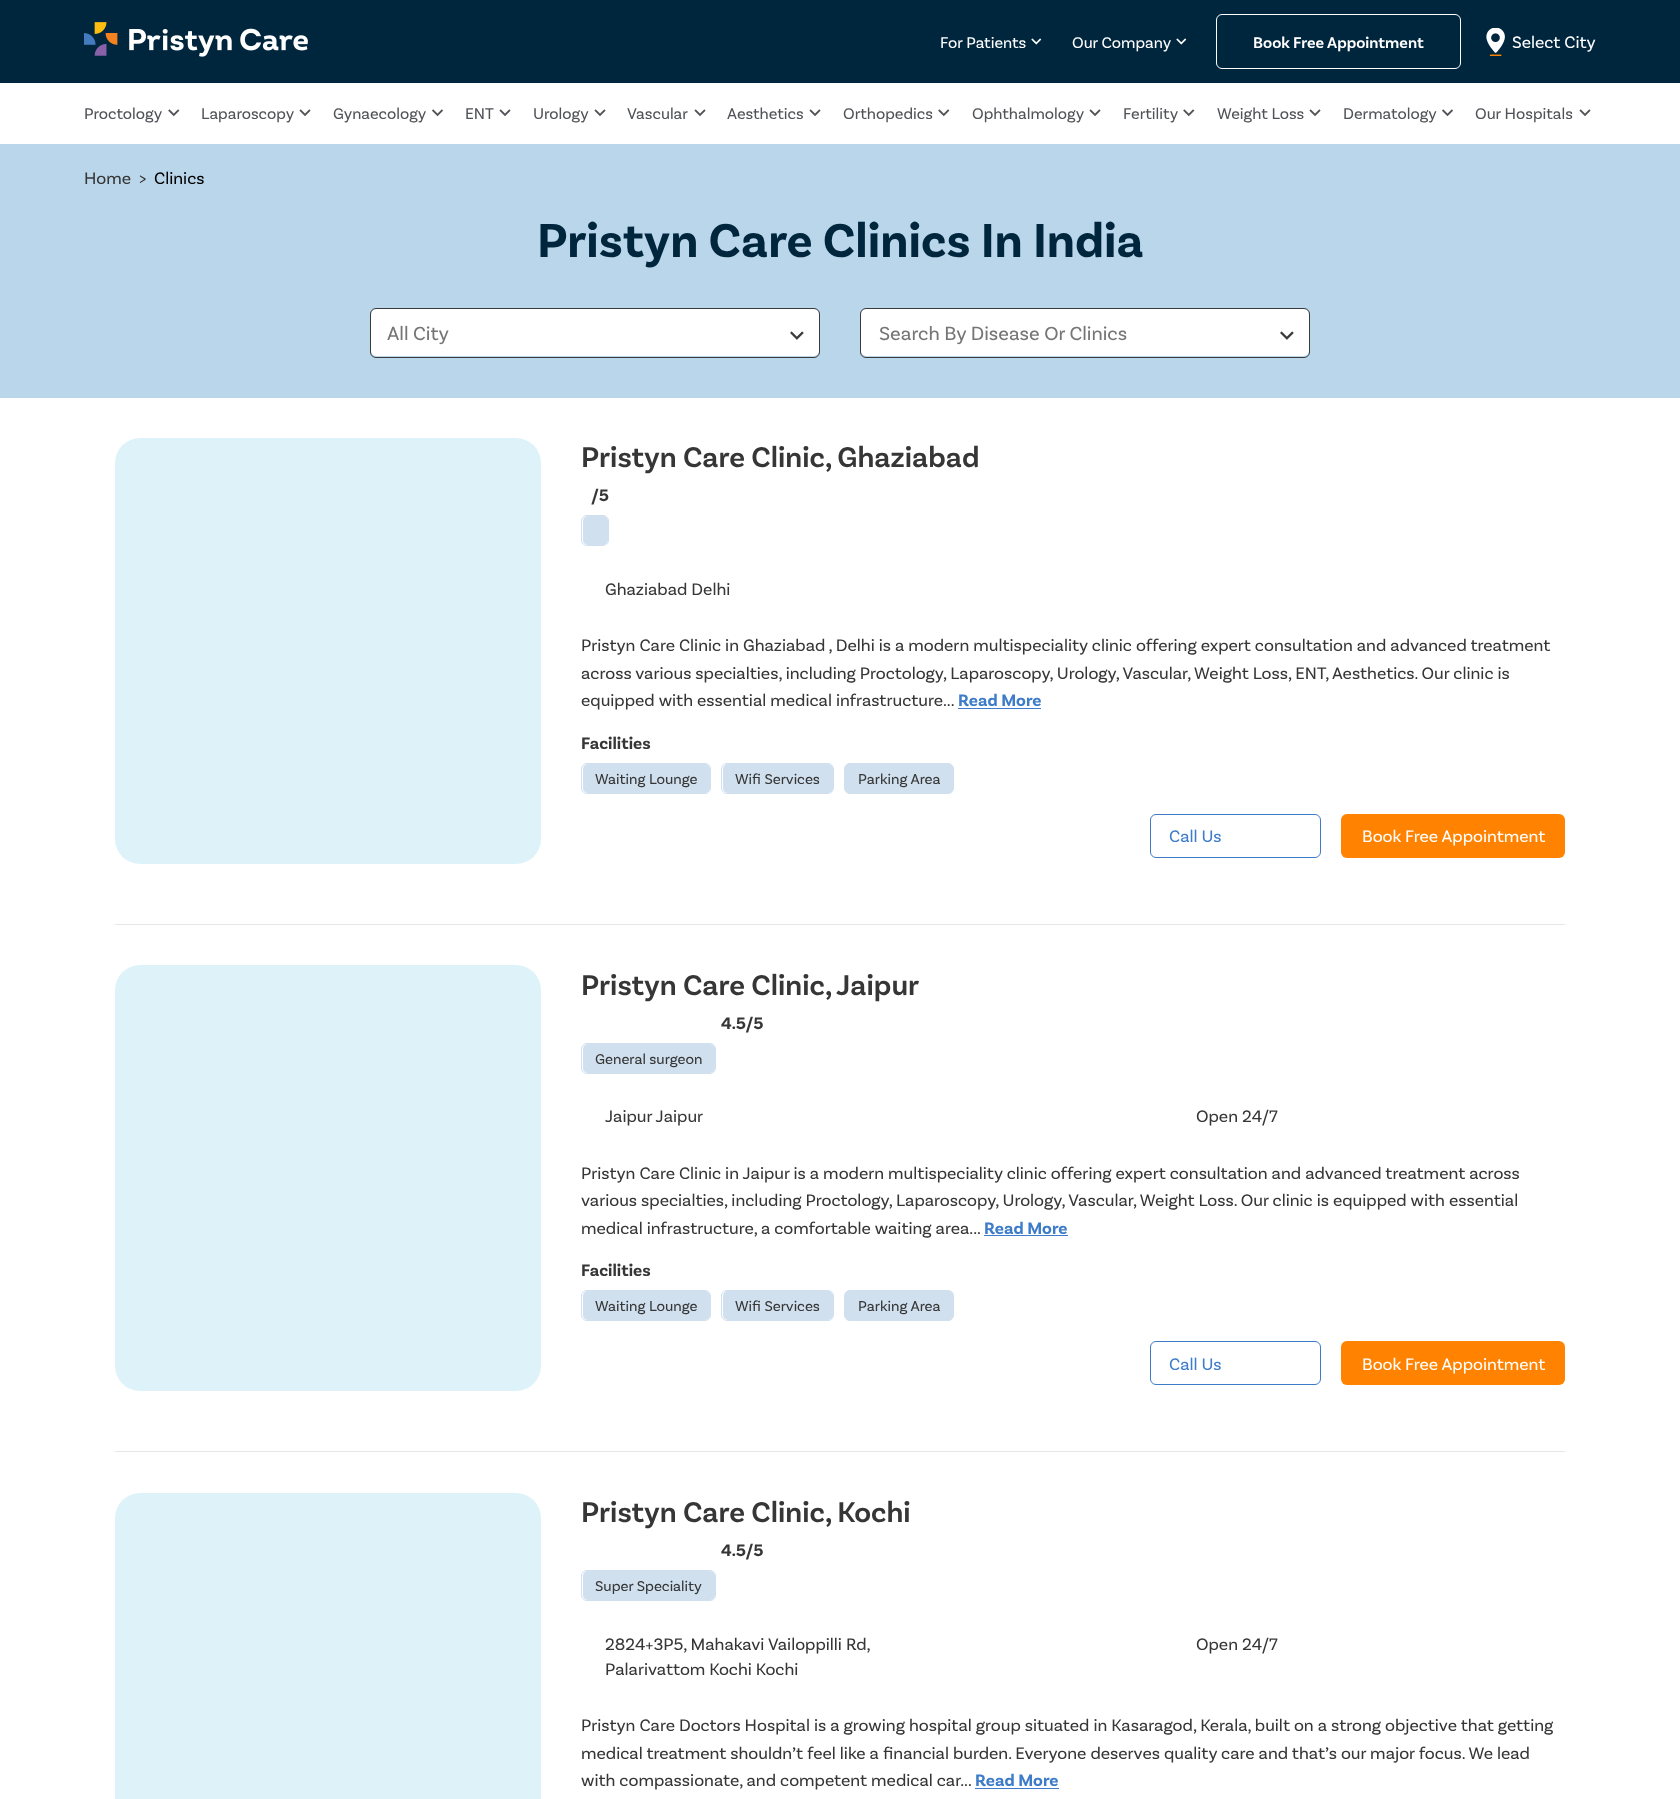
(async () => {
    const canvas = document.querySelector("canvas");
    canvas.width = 1680;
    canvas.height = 1799;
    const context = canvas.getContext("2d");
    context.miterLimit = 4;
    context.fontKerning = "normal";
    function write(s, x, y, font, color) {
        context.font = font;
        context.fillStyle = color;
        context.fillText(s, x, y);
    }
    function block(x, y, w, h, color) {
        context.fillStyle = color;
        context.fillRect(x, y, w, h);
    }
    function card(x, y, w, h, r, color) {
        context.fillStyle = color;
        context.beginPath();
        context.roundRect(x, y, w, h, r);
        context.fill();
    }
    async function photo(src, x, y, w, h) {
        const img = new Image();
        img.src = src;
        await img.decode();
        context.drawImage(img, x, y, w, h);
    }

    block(0, 0, 1680, 1799, "rgb(255, 255, 255)");
    block(0, 0, 1680, 83, "rgb(0, 38, 62)");
    await photo("media/1.png", 84, 22, 224, 35);
    write("For Patients", 940, 48, "16.25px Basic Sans", "rgb(255, 255, 255)");
    await photo("media/2.png", 1031, 38, 11, 7);
    write("Our Company", 1072, 48, "16.25px Basic Sans", "rgb(255, 255, 255)");
    await photo("media/2.png", 1176, 38, 11, 7);
    context.beginPath();
    context.roundRect(1216.5, 14.5, 244, 54, 5.5);
    context.strokeStyle = "rgb(255, 255, 255)";
    context.stroke();
    write("Book Free Appointment", 1253, 48, "600 16.25px Basic Sans", "rgb(255, 255, 255)");
    await photo("media/3.png", 1486, 28, 19, 28);
    write("Select City", 1512, 48, "17.5px Basic Sans", "rgb(255, 255, 255)");
    write("Proctology", 84, 119, "16.25px Basic Sans", "rgb(80, 82, 87)");
    await photo("media/4.png", 168, 109, 12, 8);
    write("Laparoscopy", 201, 119, "16.25px Basic Sans", "rgb(80, 82, 87)");
    await photo("media/5.png", 299, 109, 12, 8);
    write("Gynaecology", 333, 119, "16.25px Basic Sans", "rgb(80, 82, 87)");
    await photo("media/6.png", 432, 109, 11, 8);
    write("ENT", 465, 119, "16.25px Basic Sans", "rgb(80, 82, 87)");
    await photo("media/5.png", 499, 109, 12, 8);
    write("Urology", 533, 119, "16.25px Basic Sans", "rgb(80, 82, 87)");
    await photo("media/5.png", 594, 109, 12, 8);
    write("Vascular", 627, 119, "16.25px Basic Sans", "rgb(80, 82, 87)");
    await photo("media/5.png", 694, 109, 12, 8);
    write("Aesthetics", 727, 119, "16.25px Basic Sans", "rgb(80, 82, 87)");
    await photo("media/5.png", 809, 109, 12, 8);
    write("Orthopedics", 843, 119, "16.25px Basic Sans", "rgb(80, 82, 87)");
    await photo("media/4.png", 938, 109, 12, 8);
    write("Ophthalmology", 972, 119, "16.25px Basic Sans", "rgb(80, 82, 87)");
    await photo("media/5.png", 1089, 109, 12, 8);
    write("Fertility", 1123, 119, "16.25px Basic Sans", "rgb(80, 82, 87)");
    await photo("media/4.png", 1183, 109, 12, 8);
    write("Weight Loss", 1217, 119, "16.25px Basic Sans", "rgb(80, 82, 87)");
    await photo("media/5.png", 1309, 109, 12, 8);
    write("Dermatology", 1343, 119, "16.25px Basic Sans", "rgb(80, 82, 87)");
    await photo("media/6.png", 1442, 109, 11, 8);
    write("Our Hospitals", 1475, 119, "16.25px Basic Sans", "rgb(80, 82, 87)");
    await photo("media/5.png", 1579, 109, 12, 8);
    block(0, 144, 1680, 254, "rgb(186, 214, 234)");
    write("Home", 84, 184, "17.5px Basic Sans", "rgb(54, 54, 54)");
    write(">", 139, 184, "17.5px Basic Sans", "rgb(54, 54, 54)");
    write("Clinics", 154, 184, "17.5px Basic Sans", "rgb(0, 0, 0)");
    write("Pristyn Care Clinics In India", 537, 257, "bold 50px Basic Sans", "rgb(0, 38, 62)");
    card(371, 309, 448, 47, 5, "rgb(255, 255, 255)");
    context.beginPath();
    context.roundRect(370.5, 308.5, 449, 49, 5.5);
    context.strokeStyle = "rgb(59, 59, 59)";
    context.stroke();
    write("All City", 387, 340, "20px Basic Sans", "rgb(117, 117, 117)");
    await photo("media/7.png", 790, 331, 14, 9);
    card(861, 309, 448, 47, 5, "rgb(255, 255, 255)");
    context.beginPath();
    context.roundRect(860.5, 308.5, 449, 49, 5.5);
    context.stroke();
    write("Search By Disease Or Clinics", 879, 340, "20px Basic Sans", "rgb(117, 117, 117)");
    await photo("media/7.png", 1280, 331, 14, 9);
    block(115, 924, 1450, 1, "rgb(232, 231, 231)");
    card(115, 438, 426, 426, 25, "rgb(222, 243, 249)");
    write("Pristyn Care Clinic, Ghaziabad", 581, 467, "600 30px Basic Sans", "rgb(54, 54, 54)");
    write("/5", 591, 501, "bold 17.5px Basic Sans", "rgb(54, 54, 54)");
    card(583, 516, 25, 29, 5, "rgb(208, 224, 239)");
    context.beginPath();
    context.roundRect(581.5, 515.5, 27, 30, 5.5);
    context.strokeStyle = "rgb(208, 224, 239)";
    context.stroke();
    write("Ghaziabad Delhi", 605, 595, "17.5px Basic Sans", "rgb(54, 54, 54)");
    write("Pristyn Care Clinic in Ghaziabad , Delhi is a modern multispeciality clinic offering expert consultation and advanced treatment", 581, 651, "17.5px Basic Sans", "rgb(54, 54, 54)");
    write("across various specialties, including Proctology, Laparoscopy, Urology, Vascular, Weight Loss, ENT, Aesthetics. Our clinic is", 581, 679, "17.5px Basic Sans", "rgb(54, 54, 54)");
    write("equipped with essential medical infrastructure...", 581, 706, "17.5px Basic Sans", "rgb(54, 54, 54)");
    write("Read More", 958, 706, "bold 17.5px Basic Sans", "rgb(61, 124, 201)");
    block(958, 708, 83, 1, "rgb(61, 124, 201)");
    write("Facilities", 581, 749, "bold 17.5px Basic Sans", "rgb(54, 54, 54)");
    card(583, 764, 127, 29, 5, "rgb(208, 224, 239)");
    context.beginPath();
    context.roundRect(581.5, 763.5, 129, 30, 5.5);
    context.stroke();
    write("Waiting Lounge", 595, 784, "15px Basic Sans", "rgb(54, 54, 54)");
    card(723, 764, 110, 29, 5, "rgb(208, 224, 239)");
    context.beginPath();
    context.roundRect(721.5, 763.5, 112, 30, 5.5);
    context.stroke();
    write("Wifi Services", 735, 784, "15px Basic Sans", "rgb(54, 54, 54)");
    context.fillStyle = "rgb(208, 224, 239)";
    context.beginPath();
    context.roundRect(844.5, 763.5, 109, 30, 5.5);
    context.fill();
    context.stroke();
    write("Parking Area", 858, 784, "15px Basic Sans", "rgb(54, 54, 54)");
    context.beginPath();
    context.roundRect(1150.5, 814.5, 170, 43, 5.5);
    context.strokeStyle = "rgb(61, 124, 201)";
    context.stroke();
    write("Call Us", 1169, 842, "17.5px Basic Sans", "rgb(61, 124, 201)");
    card(1341, 814, 224, 44, 6, "rgb(255, 131, 0)");
    write("Book Free Appointment", 1362, 842, "17.5px Basic Sans", "rgb(255, 255, 255)");
    block(115, 1451, 1450, 1, "rgb(232, 231, 231)");
    card(115, 965, 426, 426, 25, "rgb(222, 243, 249)");
    write("Pristyn Care Clinic, Jaipur", 581, 995, "600 30px Basic Sans", "rgb(54, 54, 54)");
    write("4.5/5", 721, 1029, "bold 17.5px Basic Sans", "rgb(54, 54, 54)");
    card(583, 1044, 132, 29, 5, "rgb(208, 224, 239)");
    context.beginPath();
    context.roundRect(581.5, 1043.5, 134, 30, 5.5);
    context.strokeStyle = "rgb(208, 224, 239)";
    context.stroke();
    write("General surgeon", 595, 1064, "15px Basic Sans", "rgb(54, 54, 54)");
    write("Jaipur Jaipur", 605, 1122, "17.5px Basic Sans", "rgb(54, 54, 54)");
    write("Open 24/7", 1196, 1122, "17.5px Basic Sans", "rgb(54, 54, 54)");
    write("Pristyn Care Clinic in Jaipur is a modern multispeciality clinic offering expert consultation and advanced treatment across", 581, 1179, "17.5px Basic Sans", "rgb(54, 54, 54)");
    write("various specialties, including Proctology, Laparoscopy, Urology, Vascular, Weight Loss. Our clinic is equipped with essential", 581, 1206, "17.5px Basic Sans", "rgb(54, 54, 54)");
    write("medical infrastructure, a comfortable waiting area...", 581, 1234, "17.5px Basic Sans", "rgb(54, 54, 54)");
    write("Read More", 984, 1234, "bold 17.5px Basic Sans", "rgb(61, 124, 201)");
    block(984, 1235, 84, 1, "rgb(61, 124, 201)");
    write("Facilities", 581, 1276, "bold 17.5px Basic Sans", "rgb(54, 54, 54)");
    card(583, 1291, 127, 29, 5, "rgb(208, 224, 239)");
    context.beginPath();
    context.roundRect(581.5, 1290.5, 129, 30, 5.5);
    context.stroke();
    write("Waiting Lounge", 595, 1311, "15px Basic Sans", "rgb(54, 54, 54)");
    card(723, 1291, 110, 29, 5, "rgb(208, 224, 239)");
    context.beginPath();
    context.roundRect(721.5, 1290.5, 112, 30, 5.5);
    context.stroke();
    write("Wifi Services", 735, 1311, "15px Basic Sans", "rgb(54, 54, 54)");
    context.fillStyle = "rgb(208, 224, 239)";
    context.beginPath();
    context.roundRect(844.5, 1290.5, 109, 30, 5.5);
    context.fill();
    context.stroke();
    write("Parking Area", 858, 1311, "15px Basic Sans", "rgb(54, 54, 54)");
    context.beginPath();
    context.roundRect(1150.5, 1341.5, 170, 43, 5.5);
    context.strokeStyle = "rgb(61, 124, 201)";
    context.stroke();
    write("Call Us", 1169, 1370, "17.5px Basic Sans", "rgb(61, 124, 201)");
    card(1341, 1341, 224, 44, 6, "rgb(255, 131, 0)");
    write("Book Free Appointment", 1362, 1370, "17.5px Basic Sans", "rgb(255, 255, 255)");
    card(115, 1493, 426, 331, 25, "rgb(222, 243, 249)");
    write("Pristyn Care Clinic, Kochi", 581, 1522, "600 30px Basic Sans", "rgb(54, 54, 54)");
    write("4.5/5", 721, 1556, "bold 17.5px Basic Sans", "rgb(54, 54, 54)");
    card(583, 1571, 132, 29, 5, "rgb(208, 224, 239)");
    context.beginPath();
    context.roundRect(581.5, 1570.5, 134, 30, 5.5);
    context.strokeStyle = "rgb(208, 224, 239)";
    context.stroke();
    write("Super Speciality", 595, 1591, "15px Basic Sans", "rgb(54, 54, 54)");
    write("2824+3P5, Mahakavi Vailoppilli Rd,", 605, 1650, "17.5px Basic Sans", "rgb(54, 54, 54)");
    write("Palarivattom Kochi Kochi", 605, 1675, "17.5px Basic Sans", "rgb(54, 54, 54)");
    write("Open 24/7", 1196, 1650, "17.5px Basic Sans", "rgb(54, 54, 54)");
    write("Pristyn Care Doctors Hospital is a growing hospital group situated in Kasaragod, Kerala, built on a strong objective that getting", 581, 1731, "17.5px Basic Sans", "rgb(54, 54, 54)");
    write("medical treatment shouldn’t feel like a financial burden. Everyone deserves quality care and that’s our major focus. We lead", 581, 1759, "17.5px Basic Sans", "rgb(54, 54, 54)");
    write("with compassionate, and competent medical car...", 581, 1786, "17.5px Basic Sans", "rgb(54, 54, 54)");
    write("Read More", 975, 1786, "bold 17.5px Basic Sans", "rgb(61, 124, 201)");
    block(975, 1788, 84, 1, "rgb(61, 124, 201)");
})();
